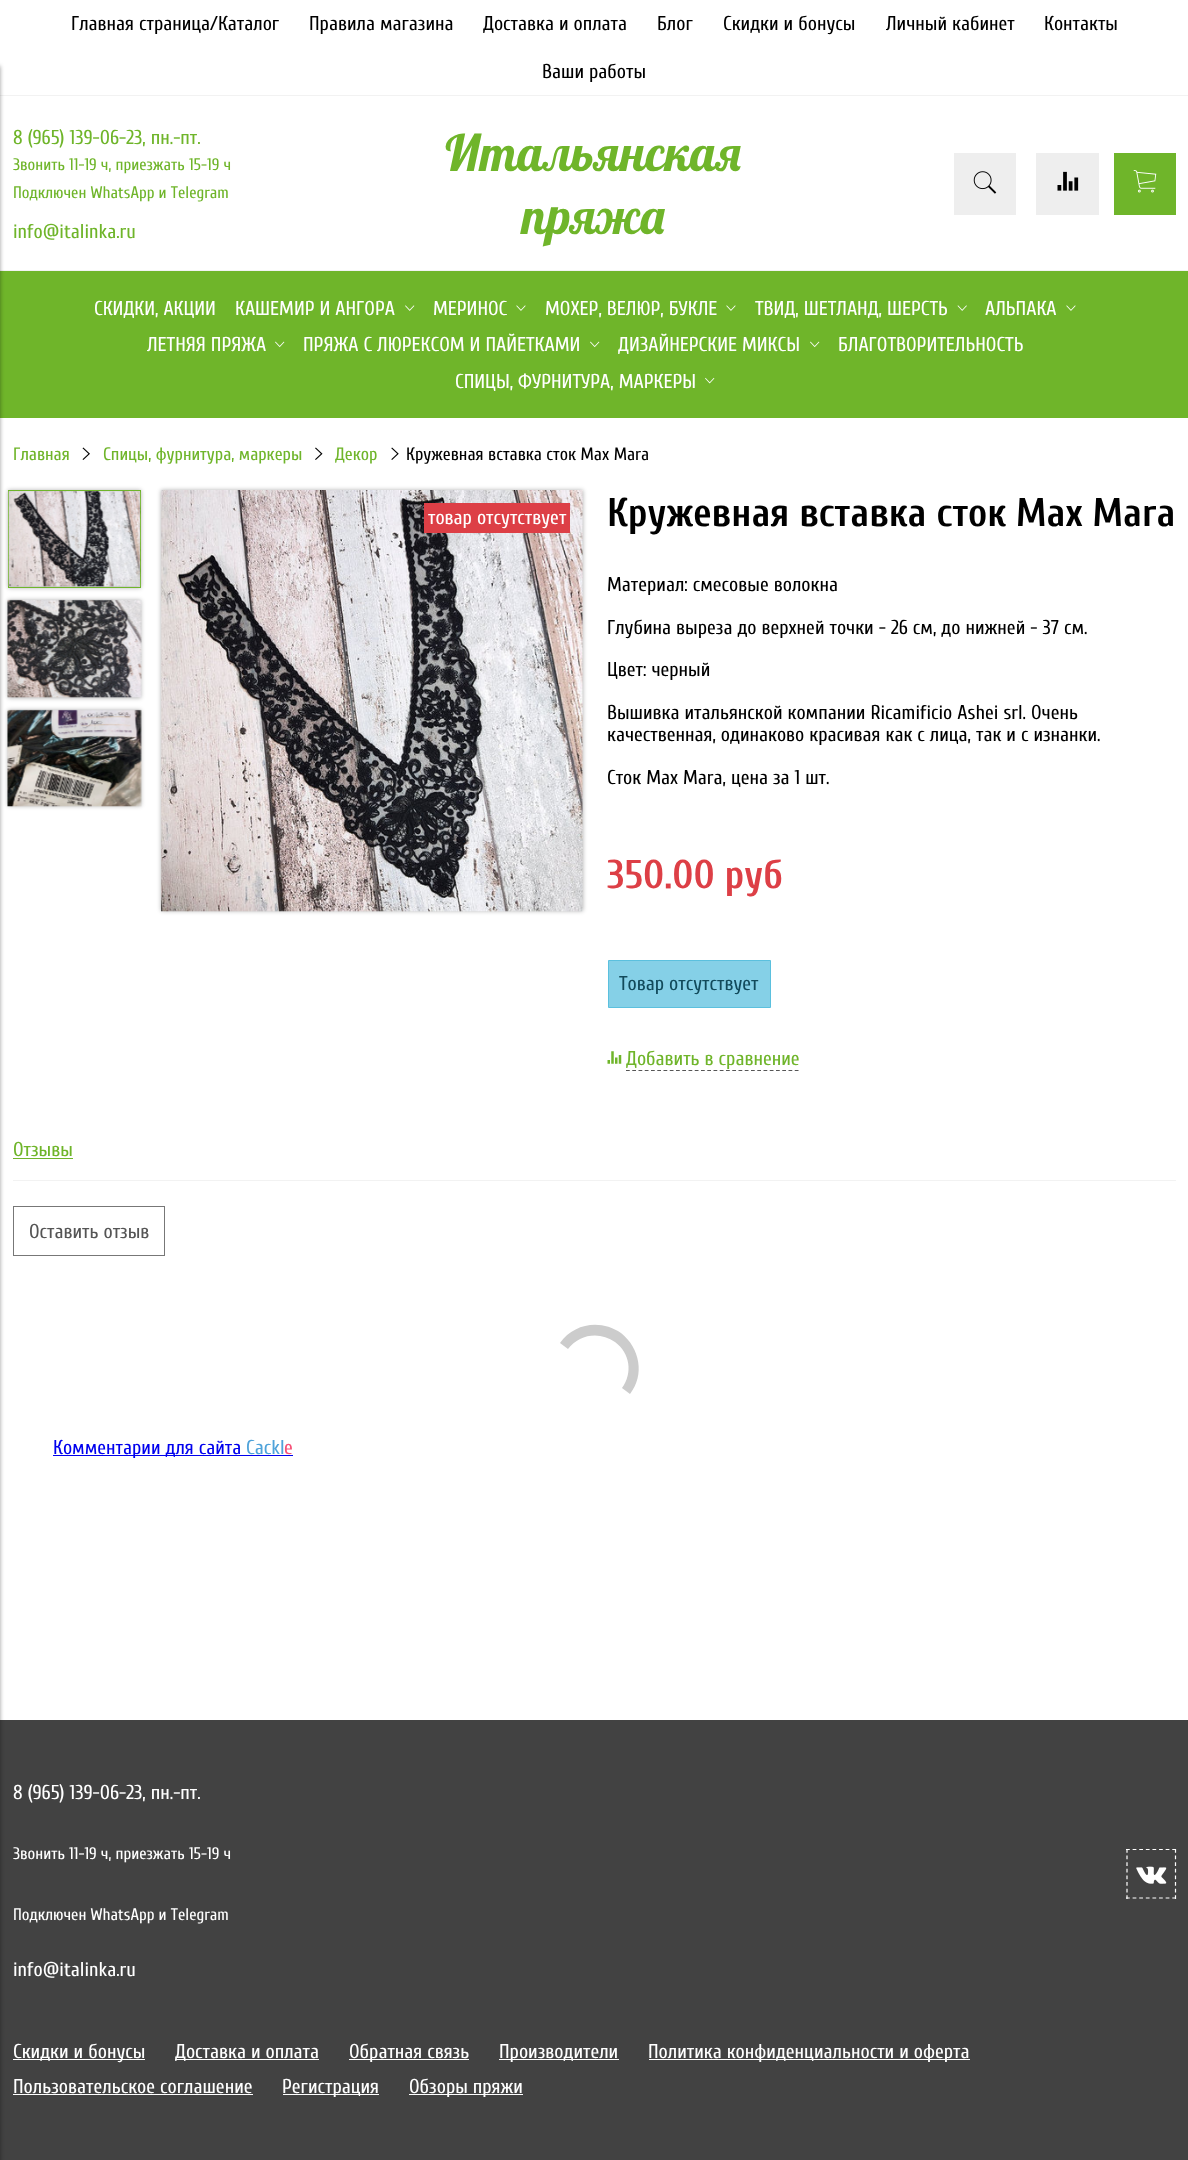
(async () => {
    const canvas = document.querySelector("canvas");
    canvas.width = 1188;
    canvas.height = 2160;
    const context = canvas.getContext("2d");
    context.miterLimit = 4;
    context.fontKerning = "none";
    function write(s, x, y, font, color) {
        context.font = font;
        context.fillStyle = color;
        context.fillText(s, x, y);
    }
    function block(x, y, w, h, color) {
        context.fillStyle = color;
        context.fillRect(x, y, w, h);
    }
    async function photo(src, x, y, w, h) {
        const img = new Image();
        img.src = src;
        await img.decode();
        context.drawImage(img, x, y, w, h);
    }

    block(0, 0, 1188, 2160, "rgb(66, 66, 66)");
    block(0, 0, 1188, 1720, "rgb(255, 255, 255)");
    block(0, 95, 1188, 1, "rgb(242, 242, 242)");
    block(0, 270, 1188, 1, "rgb(242, 242, 242)");
    block(0, 271, 1188, 147, "rgb(111, 181, 42)");
    context.fillStyle = "rgba(0, 0, 0, 0.4)";
    context.filter = "blur(2px)";
    context.beginPath();
    context.rect(-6, 66, 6, 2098);
    context.fill();
    context.filter = "none";
    write("Главная страница/Каталог", 71, 30, "20px Cuprum", "rgb(0, 0, 0)");
    write("Правила магазина", 309, 30, "20px Cuprum", "rgb(0, 0, 0)");
    write("Доставка и оплата", 483, 30, "20px Cuprum", "rgb(0, 0, 0)");
    write("Блог", 657, 30, "20px Cuprum", "rgb(0, 0, 0)");
    write("Скидки и бонусы", 723, 30, "20px Cuprum", "rgb(0, 0, 0)");
    write("Личный кабинет", 886, 30, "20px Cuprum", "rgb(0, 0, 0)");
    write("Контакты", 1044, 30, "20px Cuprum", "rgb(0, 0, 0)");
    write("Ваши работы", 542, 78, "20px Cuprum", "rgb(0, 0, 0)");
    write("8 (965) 139-06-23, пн.-пт.", 13, 144, "20px Cuprum", "rgb(111, 181, 42)");
    write("Звонить 11-19 ч, приезжать 15-19 ч", 13, 170, "16.7px Cuprum", "rgb(111, 181, 42)");
    write("Подключен WhatsApp и Telegram", 13, 198, "16.7px Cuprum", "rgb(111, 181, 42)");
    write("info@italinka.ru", 13, 238, "20px Cuprum", "rgb(111, 181, 42)");
    write("Итальянская", 445, 171, "50px Lobster", "rgb(111, 181, 42)");
    write("пряжа", 522, 234, "50px Lobster", "rgb(111, 181, 42)");
    block(954, 153, 62, 62, "rgb(238, 238, 238)");
    await photo("media/1.png", 973, 171, 24, 23);
    block(1036, 153, 63, 62, "rgb(238, 238, 238)");
    await photo("media/2.png", 1057, 171, 22, 20);
    block(1114, 153, 62, 62, "rgb(111, 181, 42)");
    await photo("media/3.png", 1133, 170, 24, 23);
    write("СКИДКИ, АКЦИИ", 94, 315, "20px Cuprum", "rgb(255, 255, 255)");
    write("КАШЕМИР И АНГОРА", 235, 315, "20px Cuprum", "rgb(255, 255, 255)");
    await photo("media/4.png", 405, 305, 10, 6);
    write("МЕРИНОС", 433, 315, "20px Cuprum", "rgb(255, 255, 255)");
    await photo("media/5.png", 516, 305, 10, 6);
    write("МОХЕР, ВЕЛЮР, БУКЛЕ", 545, 315, "20px Cuprum", "rgb(255, 255, 255)");
    await photo("media/5.png", 726, 305, 10, 6);
    write("ТВИД, ШЕТЛАНД, ШЕРСТЬ", 755, 315, "20px Cuprum", "rgb(255, 255, 255)");
    await photo("media/6.png", 957, 305, 10, 6);
    write("АЛЬПАКА", 985, 315, "20px Cuprum", "rgb(255, 255, 255)");
    await photo("media/5.png", 1066, 305, 10, 6);
    write("ЛЕТНЯЯ ПРЯЖА", 147, 351, "20px Cuprum", "rgb(255, 255, 255)");
    await photo("media/7.png", 275, 341, 10, 7);
    write("ПРЯЖА С ЛЮРЕКСОМ И ПАЙЕТКАМИ", 303, 351, "20px Cuprum", "rgb(255, 255, 255)");
    await photo("media/7.png", 590, 341, 10, 7);
    write("ДИЗАЙНЕРСКИЕ МИКСЫ", 618, 351, "20px Cuprum", "rgb(255, 255, 255)");
    await photo("media/7.png", 810, 341, 10, 7);
    write("БЛАГОТВОРИТЕЛЬНОСТЬ", 838, 351, "20px Cuprum", "rgb(255, 255, 255)");
    write("СПИЦЫ, ФУРНИТУРА, МАРКЕРЫ", 455, 388, "20px Cuprum", "rgb(255, 255, 255)");
    await photo("media/8.png", 705, 377, 10, 7);
    write("Главная", 13, 460, "18px Cuprum", "rgb(111, 181, 42)");
    await photo("media/9.png", 82, 447, 8, 13);
    write("Спицы, фурнитура, маркеры", 103, 460, "18px Cuprum", "rgb(111, 181, 42)");
    await photo("media/10.png", 315, 447, 8, 13);
    write("Декор", 335, 460, "18px Cuprum", "rgb(111, 181, 42)");
    await photo("media/11.png", 391, 447, 8, 13);
    write("Кружевная вставка сток Max Mara", 406, 460, "18px Cuprum", "rgb(0, 0, 0)");
    context.fillStyle = "rgba(0, 0, 0, 0.3)";
    context.filter = "blur(2px)";
    context.beginPath();
    context.rect(8, 490, 133, 98);
    context.fill();
    context.filter = "none";
    context.strokeStyle = "rgb(111, 181, 42)";
    context.strokeRect(8.5, 490.5, 132, 97);
    await photo("media/12.png", 8, 491, 133, 96);
    context.filter = "blur(2px)";
    context.beginPath();
    context.rect(8, 600, 133, 98);
    context.fill();
    context.filter = "none";
    await photo("media/13.png", 7, 599, 135, 99);
    context.filter = "blur(2px)";
    context.beginPath();
    context.rect(8, 710, 133, 96);
    context.fill();
    context.filter = "none";
    await photo("media/14.png", 7, 709, 135, 98);
    context.filter = "blur(2px)";
    context.beginPath();
    context.rect(161, 490, 422, 421);
    context.fill();
    context.filter = "none";
    await photo("media/15.png", 161, 490, 422, 422);
    block(424, 503, 146, 30, "rgb(221, 63, 70)");
    write("товар отсутствует", 428, 524, "20px Cuprum", "rgb(255, 255, 255)");
    write("Кружевная вставка сток Max Mara", 607, 526, "bold 40px Cuprum", "rgb(0, 0, 0)");
    write("Материал: смесовые волокна", 607, 591, "20px Cuprum", "rgb(0, 0, 0)");
    write("Глубина выреза до верхней точки - 26 см, до нижней - 37 см.", 607, 634, "20px Cuprum", "rgb(0, 0, 0)");
    write("Цвет: черный", 607, 676, "20px Cuprum", "rgb(0, 0, 0)");
    write("Вышивка итальянской компании Ricamificio Ashei srl. Очень", 607, 719, "20px Cuprum", "rgb(0, 0, 0)");
    write("качественная, одинаково красивая как с лица, так и с изнанки.", 607, 741, "20px Cuprum", "rgb(0, 0, 0)");
    write("Сток Max Mara, цена за 1 шт.", 607, 784, "20px Cuprum", "rgb(0, 0, 0)");
    write("350.00 руб", 607, 888, "bold 40px Cuprum", "rgb(221, 63, 70)");
    context.fillStyle = "rgb(133, 208, 231)";
    context.beginPath();
    context.rect(608.5, 960.5, 162, 47);
    context.fill();
    context.strokeStyle = "rgb(91, 192, 222)";
    context.stroke();
    write("Товар отсутствует", 619, 990, "20px Cuprum", "rgb(18, 74, 91)");
    await photo("media/16.png", 607, 1051, 15, 13);
    write("Добавить в сравнение", 626, 1065, "20px Cuprum", "rgb(111, 181, 42)");
    context.beginPath();
    context.moveTo(626, 1070.5);
    context.lineTo(799, 1070.5);
    context.strokeStyle = "rgb(85, 85, 85)";
    context.lineWidth = 1.2;
    context.setLineDash([3.75, 2.5]);
    context.stroke();
    block(13, 1180, 1163, 1, "rgb(242, 242, 242)");
    write("Отзывы", 13, 1156, "20px Cuprum", "rgb(111, 181, 42)");
    block(13, 1158, 60, 1, "rgb(111, 181, 42)");
    context.strokeStyle = "rgb(119, 119, 119)";
    context.lineWidth = 1;
    context.setLineDash([]);
    context.strokeRect(13.5, 1206.5, 151, 49);
    write("Оставить отзыв", 29, 1238, "20px Cuprum", "rgb(85, 85, 85)");
    context.fillStyle = "rgb(204, 204, 204)";
    context.beginPath();
    context.moveTo(630, 1394);
    context.bezierCurveTo(645, 1375, 640, 1348, 621, 1333);
    context.bezierCurveTo(601, 1319, 574, 1323, 560, 1343);
    context.lineTo(568, 1349);
    context.bezierCurveTo(579, 1334, 600, 1331, 615, 1342);
    context.bezierCurveTo(630, 1353, 633, 1373, 622, 1388);
    context.closePath();
    context.fill();
    block(53, 1455, 240, 1, "rgb(0, 0, 238)");
    write("Комментарии для сайта", 53, 1454, "20px Cuprum", "rgb(0, 0, 238)");
    write("Cackl", 246, 1454, "20px Cuprum", "rgb(79, 163, 218)");
    write("e", 284, 1454, "20px Cuprum", "rgb(246, 80, 119)");
    write("8 (965) 139-06-23, пн.-пт.", 13, 1799, "20px Cuprum", "rgb(255, 255, 255)");
    write("Звонить 11-19 ч, приезжать 15-19 ч", 13, 1859, "16.7px Cuprum", "rgb(255, 255, 255)");
    write("Подключен WhatsApp и Telegram", 13, 1920, "16.7px Cuprum", "rgb(255, 255, 255)");
    write("info@italinka.ru", 13, 1976, "20px Cuprum", "rgb(255, 255, 255)");
    context.beginPath();
    context.moveTo(1126, 1849.5);
    context.lineTo(1176, 1849.5);
    context.moveTo(1175.5, 1849);
    context.lineTo(1175.5, 1899);
    context.moveTo(1126, 1898);
    context.lineTo(1176, 1898);
    context.moveTo(1127, 1849);
    context.lineTo(1127, 1899);
    context.strokeStyle = "rgb(255, 255, 255)";
    context.lineWidth = 1.2;
    context.setLineDash([3.75, 2.86]);
    context.stroke();
    await photo("media/17.png", 1136, 1866, 31, 18);
    block(13, 2059, 132, 1, "rgb(255, 255, 255)");
    write("Скидки и бонусы", 13, 2058, "20px Cuprum", "rgb(255, 255, 255)");
    block(175, 2059, 144, 1, "rgb(255, 255, 255)");
    write("Доставка и оплата", 175, 2058, "20px Cuprum", "rgb(255, 255, 255)");
    block(349, 2059, 120, 1, "rgb(255, 255, 255)");
    write("Обратная связь", 349, 2058, "20px Cuprum", "rgb(255, 255, 255)");
    block(499, 2059, 120, 1, "rgb(255, 255, 255)");
    write("Производители", 499, 2058, "20px Cuprum", "rgb(255, 255, 255)");
    block(649, 2059, 321, 1, "rgb(255, 255, 255)");
    write("Политика конфиденциальности и оферта", 648, 2058, "20px Cuprum", "rgb(255, 255, 255)");
    write("Пользовательское соглашение", 13, 2093, "20px Cuprum", "rgb(255, 255, 255)");
    block(13, 2094, 240, 1, "rgb(255, 255, 255)");
    block(283, 2094, 96, 1, "rgb(255, 255, 255)");
    write("Регистрация", 282, 2093, "20px Cuprum", "rgb(255, 255, 255)");
    block(409, 2094, 114, 1, "rgb(255, 255, 255)");
    write("Обзоры пряжи", 409, 2093, "20px Cuprum", "rgb(255, 255, 255)");
})();
